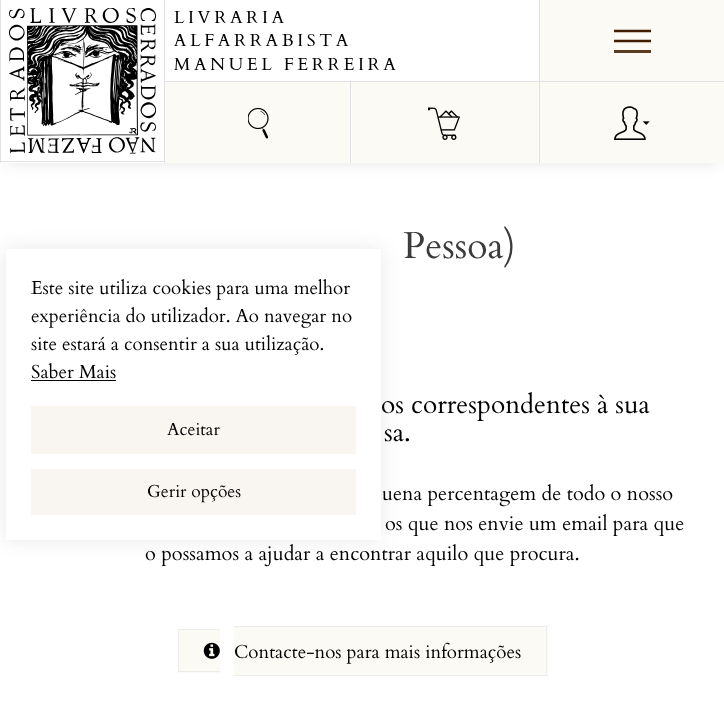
(async () => {
    const canvas = document.querySelector("canvas");
    canvas.width = 724;
    canvas.height = 714;
    const context = canvas.getContext("2d");
    context.miterLimit = 4;
    context.fontKerning = "normal";
    function write(s, x, y, font, color) {
        context.font = font;
        context.fillStyle = color;
        context.fillText(s, x, y);
    }
    function block(x, y, w, h, color) {
        context.fillStyle = color;
        context.fillRect(x, y, w, h);
    }
    async function photo(src, x, y, w, h) {
        const img = new Image();
        img.src = src;
        await img.decode();
        context.drawImage(img, x, y, w, h);
    }

    block(0, 0, 724, 714, "rgb(255, 255, 255)");
    context.save();
    context.beginPath();
    context.moveTo(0, 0);
    context.lineTo(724, 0);
    context.lineTo(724, 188);
    context.lineTo(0, 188);
    context.closePath();
    context.moveTo(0, 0);
    context.lineTo(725, 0);
    context.lineTo(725, 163);
    context.lineTo(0, 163);
    context.closePath();
    context.clip("evenodd");
    context.fillStyle = "rgba(30, 30, 30, 0.1)";
    context.filter = "blur(7.5px)";
    context.beginPath();
    context.rect(6, 14, 713, 150);
    context.fill();
    context.filter = "none";
    context.restore();
    block(0, 161, 164, 1, "rgb(226, 224, 227)");
    block(0, 0, 1, 163, "rgb(226, 224, 227)");
    await photo("media/1.png", 9, 8, 147, 146);
    block(164, 0, 1, 163, "rgb(226, 224, 227)");
    await photo("media/2.png", 174, 11, 222, 59);
    block(540, 0, 184, 81, "rgb(251, 250, 245)");
    context.beginPath();
    context.moveTo(614, 31);
    context.lineTo(651, 31);
    context.strokeStyle = "rgb(66, 30, 0)";
    context.lineWidth = 2.6;
    context.stroke();
    block(614, 50, 37, 3, "rgb(91, 59, 33)");
    context.beginPath();
    context.moveTo(614, 41);
    context.lineTo(651, 41);
    context.stroke();
    block(539, 0, 1, 81, "rgb(226, 224, 227)");
    block(165, 82, 185, 81, "rgb(251, 250, 245)");
    block(165, 81, 559, 1, "rgb(226, 224, 227)");
    block(350, 81, 1, 82, "rgb(226, 224, 227)");
    await photo("media/3.png", 248, 107, 21, 32);
    block(351, 82, 188, 81, "rgb(251, 250, 245)");
    await photo("media/4.png", 428, 107, 32, 33);
    block(540, 82, 184, 81, "rgb(251, 250, 245)");
    block(539, 81, 1, 82, "rgb(226, 224, 227)");
    await photo("media/5.png", 614, 106, 36, 34);
    write("Pessoa)", 403, 258, "37.5px Cardo", "rgb(60, 60, 60)");
    write("os correspondentes à sua", 381, 413, "26.25px Cardo", "rgb(0, 0, 0)");
    write("sa.", 384, 441, "26.25px Cardo", "rgb(0, 0, 0)");
    write("uena percentagem de todo o nosso", 382, 500, "20px Cardo", "rgb(0, 0, 0)");
    write("os que nos envie um email para que", 385, 530, "20px Cardo", "rgb(0, 0, 0)");
    write("o possamos a ajudar a encontrar aquilo que procura.", 145, 560, "20px Cardo", "rgb(0, 0, 0)");
    block(179, 630, 41, 43, "rgb(251, 250, 245)");
    block(178, 629, 42, 1, "rgb(237, 238, 235)");
    block(178, 671, 42, 1, "rgb(237, 238, 235)");
    block(178, 629, 1, 44, "rgb(237, 238, 235)");
    block(234, 627, 314, 48, "rgb(251, 250, 245)");
    block(234, 626, 314, 1, "rgb(237, 238, 235)");
    block(546, 626, 1, 50, "rgb(237, 238, 235)");
    block(234, 675, 314, 1, "rgb(237, 238, 235)");
    await photo("media/6.png", 203, 642, 17, 17);
    write("Contacte-nos para mais informações", 234, 658, "18.75px Cardo", "rgb(0, 0, 0)");
    context.fillStyle = "rgba(30, 30, 30, 0.1)";
    context.filter = "blur(9.5px)";
    context.beginPath();
    context.rect(6, 249, 375, 291);
    context.fill();
    context.filter = "none";
    block(6, 249, 375, 291, "rgb(255, 255, 255)");
    write("Este site utiliza cookies para uma melhor", 31, 294, "18.75px Cardo", "rgb(0, 0, 0)");
    write("experiência do utilizador. Ao navegar no", 31, 322, "18.75px Cardo", "rgb(0, 0, 0)");
    write("site estará a consentir a sua utilização.", 31, 350, "18.75px Cardo", "rgb(0, 0, 0)");
    write("Saber Mais", 31, 378, "18.75px Cardo", "rgb(0, 0, 0)");
    block(31, 380, 85, 1, "rgb(0, 0, 0)");
    block(31, 406, 325, 48, "rgb(249, 245, 241)");
    write("Aceitar", 167, 435, "17.5px Cardo", "rgb(0, 0, 0)");
    block(31, 469, 325, 46, "rgb(249, 245, 241)");
    write("Gerir opções", 147, 497, "17.5px Cardo", "rgb(0, 0, 0)");
})();
